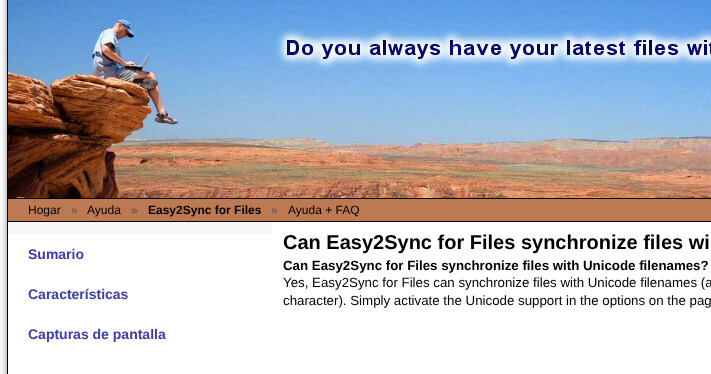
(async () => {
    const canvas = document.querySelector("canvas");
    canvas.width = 711;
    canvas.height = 374;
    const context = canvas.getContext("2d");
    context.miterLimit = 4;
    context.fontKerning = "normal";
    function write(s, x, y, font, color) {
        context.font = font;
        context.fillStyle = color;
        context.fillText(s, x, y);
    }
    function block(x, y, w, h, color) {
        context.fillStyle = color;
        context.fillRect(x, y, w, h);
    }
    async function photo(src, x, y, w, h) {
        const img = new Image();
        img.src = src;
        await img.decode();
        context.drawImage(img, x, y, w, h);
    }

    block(0, 0, 711, 374, "rgb(255, 255, 255)");
    await photo("media/1.png", 0, 0, 272, 374);
    block(8, 198, 703, 1, "rgb(0, 0, 0)");
    await photo("media/2.png", 8, 0, 703, 198);
    block(8, 199, 703, 22, "rgb(189, 121, 82)");
    block(8, 221, 703, 1, "rgb(0, 0, 0)");
    write("Hogar", 28, 214, "12px Liberation Sans", "rgb(0, 0, 0)");
    write("»", 71, 214, "12px Liberation Sans", "rgb(80, 80, 80)");
    write("Ayuda", 87, 214, "12px Liberation Sans", "rgb(0, 0, 0)");
    write("»", 131, 214, "12px Liberation Sans", "rgb(80, 80, 80)");
    write("Easy2Sync for Files", 148, 214, "bold 12px Liberation Sans", "rgb(0, 0, 0)");
    write("»", 271, 214, "12px Liberation Sans", "rgb(80, 80, 80)");
    write("Ayuda + FAQ", 288, 214, "12px Liberation Sans", "rgb(0, 0, 0)");
    block(8, 234, 264, 140, "rgb(255, 255, 255)");
    write("Sumario", 28, 259, "bold 14px Liberation Sans", "rgb(60, 60, 170)");
    write("Características", 28, 299, "bold 14px Liberation Sans", "rgb(60, 60, 170)");
    write("Capturas de pantalla", 28, 339, "bold 14px Liberation Sans", "rgb(60, 60, 170)");
    write("Can Easy2Sync for Files synchronize files wi", 283, 249, "bold 20px Liberation Sans", "rgb(0, 0, 0)");
    write("Can Easy2Sync for Files synchronize files with Unicode filenames?", 283, 270, "bold 13.3px Liberation Sans", "rgb(0, 0, 0)");
    write("Yes, Easy2Sync for Files can synchronize files with Unicode filenames (a", 283, 287, "13.3px Liberation Sans", "rgb(0, 0, 0)");
    write("character). Simply activate the Unicode support in the options on the pag", 283, 305, "13.3px Liberation Sans", "rgb(0, 0, 0)");
})();
